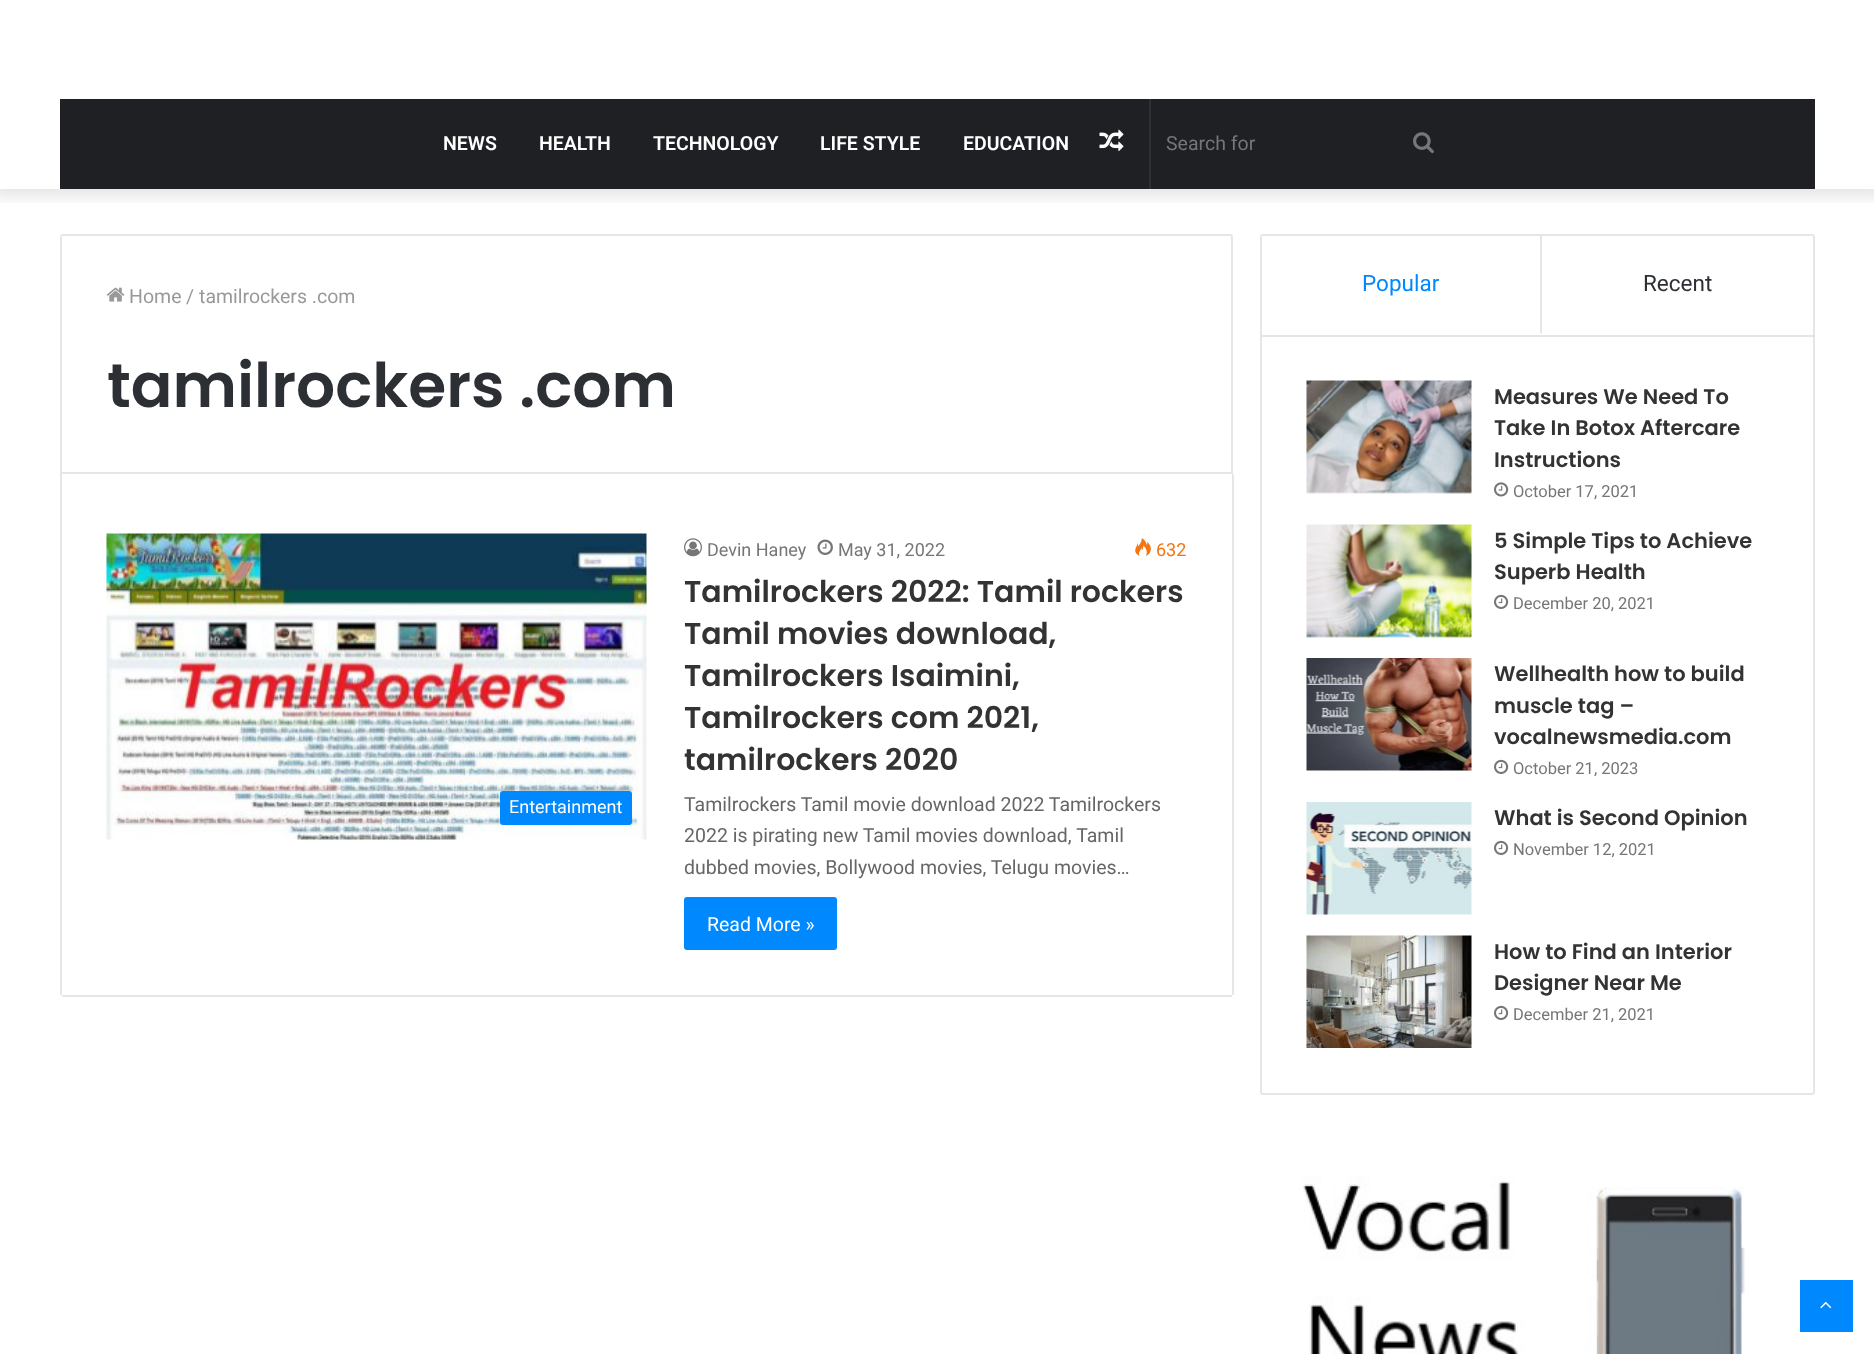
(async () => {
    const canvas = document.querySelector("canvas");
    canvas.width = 1874;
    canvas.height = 1354;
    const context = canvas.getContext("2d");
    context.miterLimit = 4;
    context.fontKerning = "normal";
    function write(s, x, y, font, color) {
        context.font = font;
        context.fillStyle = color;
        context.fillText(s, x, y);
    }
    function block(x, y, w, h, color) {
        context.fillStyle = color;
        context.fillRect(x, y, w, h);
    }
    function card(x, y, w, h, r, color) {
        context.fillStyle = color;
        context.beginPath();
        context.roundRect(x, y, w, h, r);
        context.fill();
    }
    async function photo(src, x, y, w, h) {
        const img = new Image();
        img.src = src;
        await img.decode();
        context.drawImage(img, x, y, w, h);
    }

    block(0, 0, 1874, 1354, "rgb(255, 255, 255)");
    context.save();
    context.beginPath();
    context.rect(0, 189, 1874, 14);
    context.clip();
    context.fillStyle = "rgba(0, 0, 0, 0.1)";
    context.filter = "blur(7.5px)";
    context.beginPath();
    context.rect(-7, -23, 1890, 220);
    context.fill();
    context.filter = "none";
    context.restore();
    block(60, 99, 1755, 90, "rgb(31, 32, 36)");
    write("NEWS", 443, 150, "600 19.5px Roboto", "rgb(255, 255, 255)");
    write("HEALTH", 539, 150, "600 19.5px Roboto", "rgb(255, 255, 255)");
    write("TECHNOLOGY", 653, 150, "600 19.5px Roboto", "rgb(255, 255, 255)");
    write("LIFE STYLE", 820, 150, "600 19.5px Roboto", "rgb(255, 255, 255)");
    write("EDUCATION", 963, 150, "600 19.5px Roboto", "rgb(255, 255, 255)");
    await photo("media/1.png", 1099, 129, 25, 22);
    block(1149, 99, 2, 90, "rgb(47, 48, 51)");
    write("Search for", 1166, 150, "19.5px Roboto", "rgb(118, 118, 118)");
    await photo("media/2.png", 1413, 132, 21, 22);
    context.beginPath();
    context.roundRect(61, 235, 1171, 238, [2, 2, 0, 0]);
    context.strokeStyle = "rgb(230, 230, 230)";
    context.lineWidth = 2;
    context.stroke();
    await photo("media/3.png", 106, 287, 19, 15);
    write("Home", 129, 303, "19.5px Roboto", "rgb(153, 153, 153)");
    write("/", 186, 303, "19.5px Roboto", "rgb(153, 153, 153)");
    write("tamilrockers .com", 199, 303, "19.5px Roboto", "rgb(153, 153, 153)");
    write("tamilrockers .com", 107, 407, "600 61.5px Poppins", "rgb(44, 47, 52)");
    block(1232, 474, 2, 521, "rgb(230, 230, 230)");
    block(62, 995, 1170, 2, "rgb(230, 230, 230)");
    block(60, 474, 2, 521, "rgb(230, 230, 230)");
    await photo("media/4.png", 106, 533, 541, 307);
    card(500, 791, 132, 34, 3, "rgb(0, 136, 255)");
    write("Entertainment", 509, 813, "18px Roboto", "rgb(255, 255, 255)");
    await photo("media/5.png", 684, 538, 18, 19);
    write("Devin Haney", 707, 556, "18px Roboto", "rgb(118, 118, 118)");
    await photo("media/6.png", 817, 539, 16, 16);
    write("May 31, 2022", 838, 556, "18px Roboto", "rgb(118, 118, 118)");
    await photo("media/7.png", 1135, 538, 16, 18);
    write("632", 1156, 556, "18px Roboto", "rgb(244, 117, 18)");
    write("Tamilrockers 2022: Tamil rockers", 684, 602, "600 30px Poppins", "rgb(51, 51, 51)");
    write("Tamil movies download,", 684, 644, "600 30px Poppins", "rgb(51, 51, 51)");
    write("Tamilrockers Isaimini,", 684, 686, "600 30px Poppins", "rgb(51, 51, 51)");
    write("Tamilrockers com 2021,", 684, 728, "600 30px Poppins", "rgb(51, 51, 51)");
    write("tamilrockers 2020", 684, 770, "600 30px Poppins", "rgb(51, 51, 51)");
    write("Tamilrockers Tamil movie download 2022 Tamilrockers", 684, 811, "19.5px Roboto", "rgb(102, 102, 102)");
    write("2022 is pirating new Tamil movies download, Tamil", 684, 842, "19.5px Roboto", "rgb(102, 102, 102)");
    write("dubbed movies, Bollywood movies, Telugu movies…", 684, 874, "19.5px Roboto", "rgb(102, 102, 102)");
    card(684, 897, 153, 53, 3, "rgb(0, 136, 255)");
    write("Read More »", 707, 931, "19.5px Roboto", "rgb(255, 255, 255)");
    context.beginPath();
    context.roundRect(1261, 235, 553, 859, 2);
    context.stroke();
    block(1262, 335, 552, 2, "rgba(0, 0, 0, 0.1)");
    block(1262, 236, 1, 1, "rgb(255, 255, 255)");
    context.fillStyle = "rgb(230, 230, 230)";
    context.beginPath();
    context.moveTo(1542, 236);
    context.lineTo(1542, 334);
    context.lineTo(1540, 333);
    context.lineTo(1540, 236);
    context.closePath();
    context.fill();
    write("Popular", 1362, 291, "22.5px Roboto", "rgb(0, 136, 255)");
    write("Recent", 1643, 291, "22.5px Roboto", "rgb(44, 47, 52)");
    await photo("media/8.png", 1306, 380, 166, 114);
    write("Measures We Need To", 1494, 404, "600 21px Poppins", "rgb(51, 51, 51)");
    write("Take In Botox Aftercare", 1494, 435, "600 21px Poppins", "rgb(51, 51, 51)");
    write("Instructions", 1494, 467, "600 21px Poppins", "rgb(51, 51, 51)");
    await photo("media/9.png", 1494, 482, 15, 15);
    write("October 17, 2021", 1513, 497, "16.5px Roboto", "rgb(118, 118, 118)");
    await photo("media/10.png", 1306, 524, 166, 114);
    write("5 Simple Tips to Achieve", 1494, 548, "600 21px Poppins", "rgb(51, 51, 51)");
    write("Superb Health", 1494, 579, "600 21px Poppins", "rgb(51, 51, 51)");
    await photo("media/11.png", 1494, 594, 15, 15);
    write("December 20, 2021", 1513, 609, "16.5px Roboto", "rgb(118, 118, 118)");
    await photo("media/12.png", 1306, 658, 166, 113);
    write("Wellhealth how to build", 1494, 681, "600 21px Poppins", "rgb(51, 51, 51)");
    write("muscle tag –", 1494, 713, "600 21px Poppins", "rgb(51, 51, 51)");
    write("vocalnewsmedia.com", 1494, 744, "600 21px Poppins", "rgb(51, 51, 51)");
    await photo("media/11.png", 1494, 759, 15, 15);
    write("October 21, 2023", 1513, 774, "16.5px Roboto", "rgb(118, 118, 118)");
    await photo("media/13.png", 1306, 802, 166, 113);
    write("What is Second Opinion", 1494, 825, "600 21px Poppins", "rgb(51, 51, 51)");
    await photo("media/11.png", 1494, 840, 15, 15);
    write("November 12, 2021", 1513, 855, "16.5px Roboto", "rgb(118, 118, 118)");
    await photo("media/14.png", 1306, 935, 166, 113);
    write("How to Find an Interior", 1494, 959, "600 21px Poppins", "rgb(51, 51, 51)");
    write("Designer Near Me", 1494, 990, "600 21px Poppins", "rgb(51, 51, 51)");
    await photo("media/11.png", 1494, 1005, 15, 15);
    write("December 21, 2021", 1513, 1020, "16.5px Roboto", "rgb(118, 118, 118)");
    await photo("media/15.png", 1303, 1176, 442, 178);
    block(1800, 1280, 53, 52, "rgb(0, 136, 255)");
    await photo("media/16.png", 1820, 1301, 12, 8);
})();
